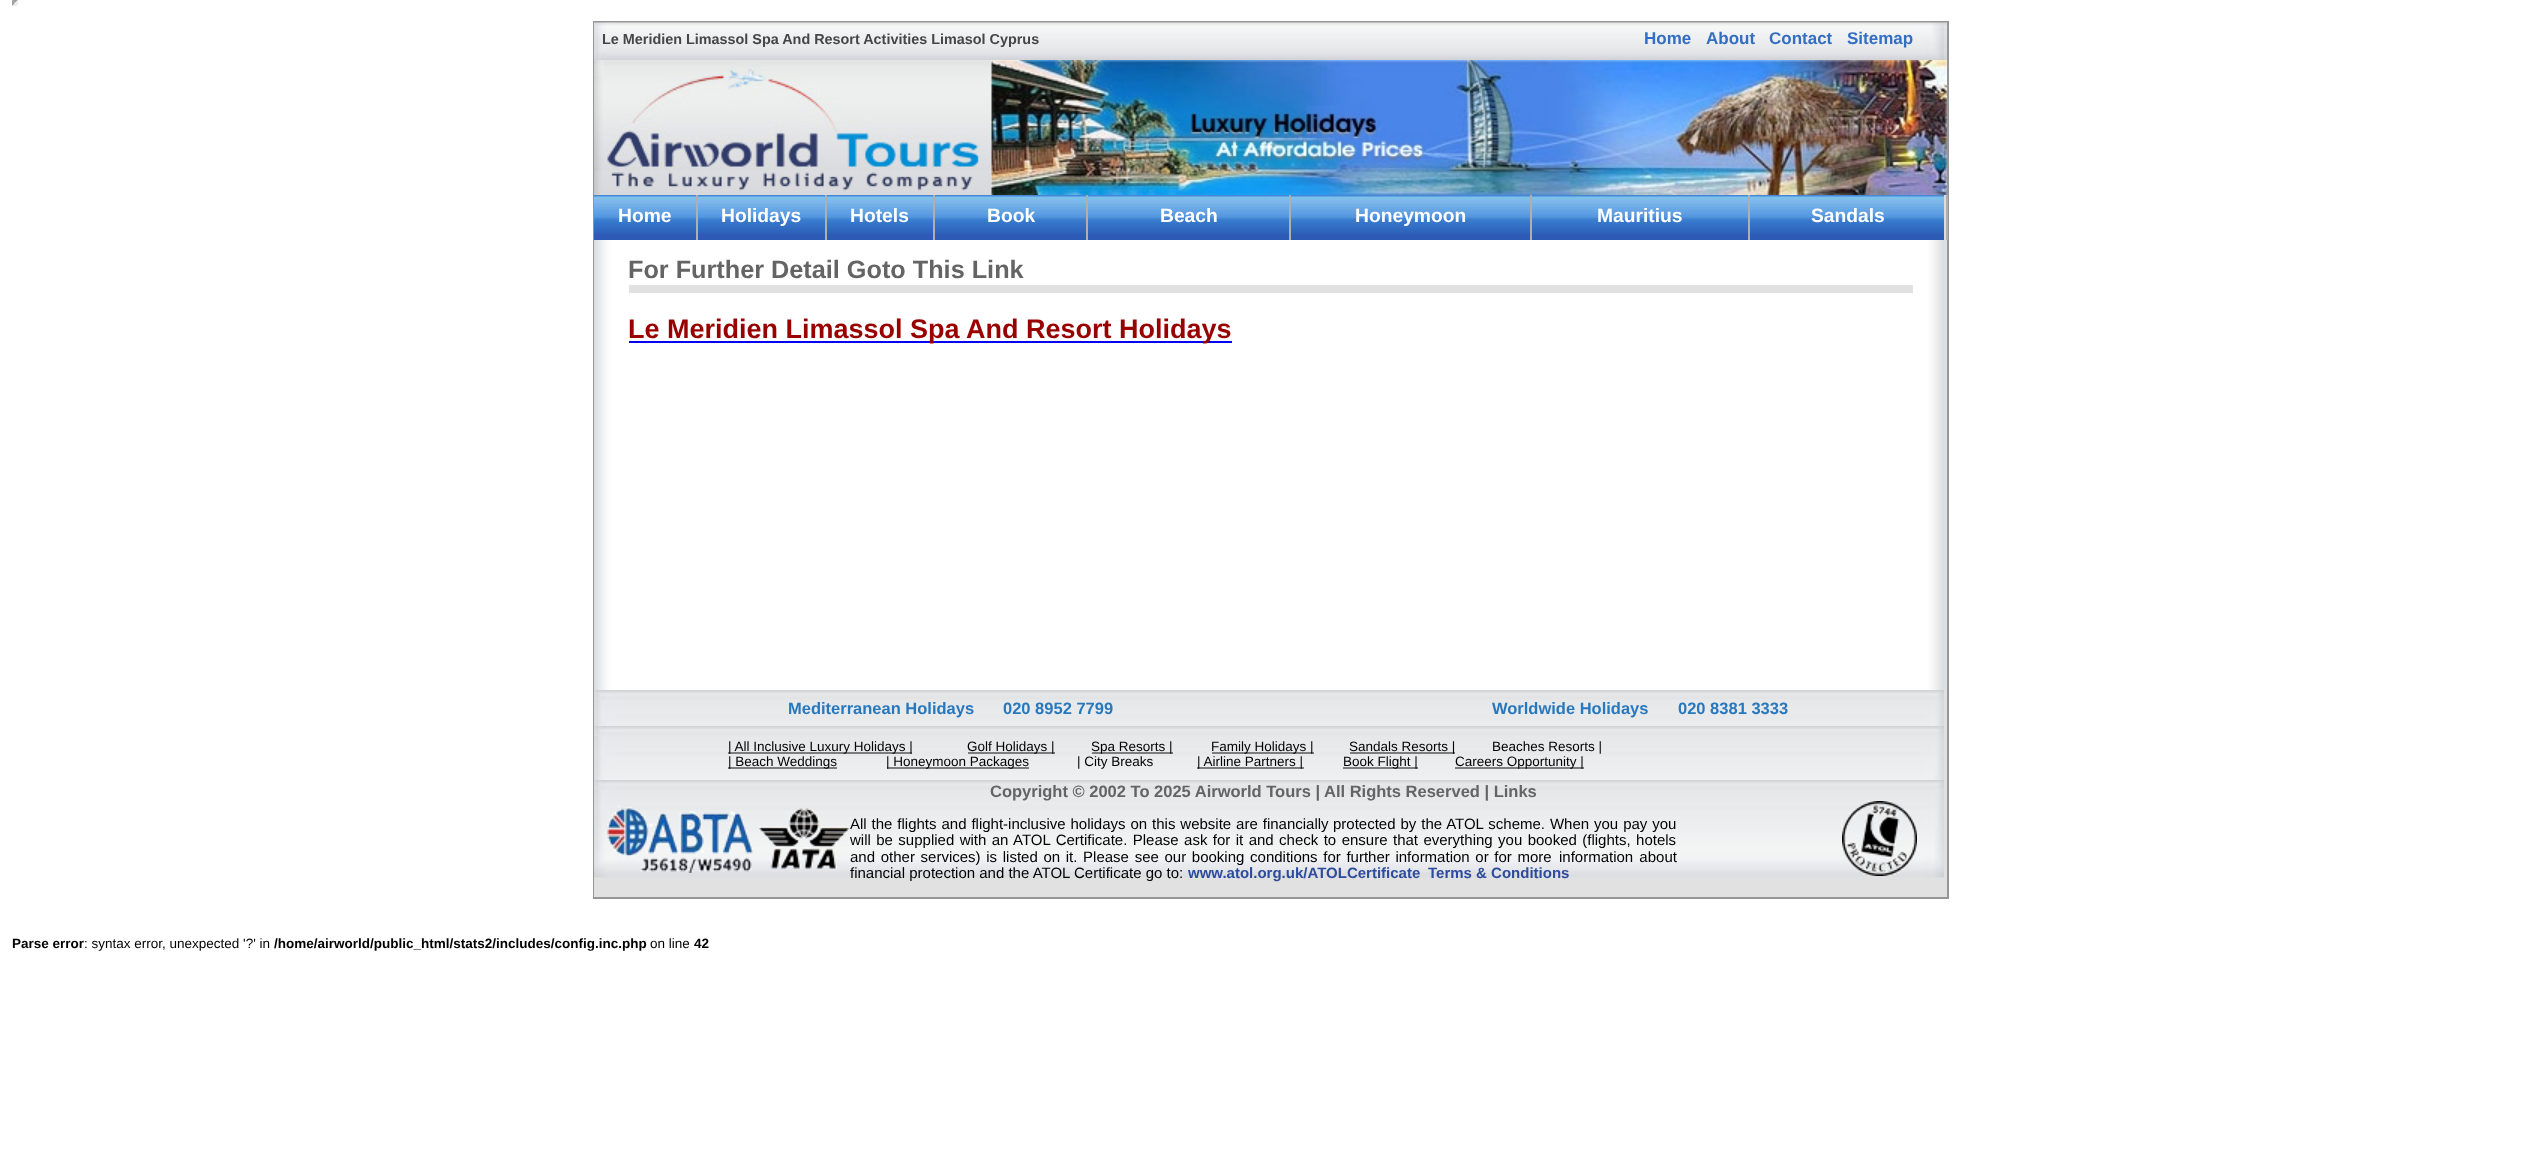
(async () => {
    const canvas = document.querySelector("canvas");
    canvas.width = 2540;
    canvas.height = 1163;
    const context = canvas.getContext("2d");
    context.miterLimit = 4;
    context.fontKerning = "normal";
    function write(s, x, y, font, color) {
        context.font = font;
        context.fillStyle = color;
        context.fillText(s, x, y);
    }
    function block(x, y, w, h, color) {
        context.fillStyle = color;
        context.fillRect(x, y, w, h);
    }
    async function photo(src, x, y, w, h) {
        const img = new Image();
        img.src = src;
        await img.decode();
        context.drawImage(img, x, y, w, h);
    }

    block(0, 0, 2540, 1163, "rgb(255, 255, 255)");
    context.fillStyle = "rgb(159, 159, 159)";
    context.beginPath();
    context.moveTo(12, 0);
    context.lineTo(18, 0);
    context.lineTo(15, 3);
    context.closePath();
    context.fill();
    context.fillStyle = "rgb(238, 238, 238)";
    context.beginPath();
    context.moveTo(18, 0);
    context.lineTo(18, 6);
    context.lineTo(15, 3);
    context.closePath();
    context.fill();
    context.beginPath();
    context.moveTo(18, 6);
    context.lineTo(12, 6);
    context.lineTo(15, 3);
    context.closePath();
    context.fill();
    context.fillStyle = "rgb(159, 159, 159)";
    context.beginPath();
    context.moveTo(12, 6);
    context.lineTo(12, 0);
    context.lineTo(15, 3);
    context.closePath();
    context.fill();
    context.strokeStyle = "rgb(150, 150, 150)";
    context.lineWidth = 2;
    context.strokeRect(594, 22, 1354, 876);
    await photo("media/1.png", 594, 22, 1353, 38);
    write("Le Meridien Limassol Spa And Resort Activities Limasol Cyprus", 602, 44, "bold 14.4px Liberation Sans", "rgb(70, 70, 70)");
    write("Home", 1644, 44, "bold 17px Liberation Sans", "rgb(52, 110, 195)");
    write("About", 1706, 44, "bold 17px Liberation Sans", "rgb(52, 110, 195)");
    write("Contact", 1769, 44, "bold 17px Liberation Sans", "rgb(52, 110, 195)");
    write("Sitemap", 1847, 44, "bold 17px Liberation Sans", "rgb(52, 110, 195)");
    await photo("media/2.png", 594, 60, 398, 135);
    await photo("media/3.png", 991, 60, 956, 135);
    block(1944, 195, 2, 45, "rgb(220, 220, 220)");
    await photo("media/4.png", 594, 195, 1350, 45);
    block(696, 195, 2, 45, "rgb(175, 175, 175)");
    write("Home", 618, 222, "bold 19.25px Liberation Sans", "rgb(255, 255, 255)");
    block(825, 195, 2, 45, "rgb(175, 175, 175)");
    write("Holidays", 721, 222, "bold 19.25px Liberation Sans", "rgb(255, 255, 255)");
    block(933, 195, 2, 45, "rgb(175, 175, 175)");
    write("Hotels", 850, 222, "bold 19.25px Liberation Sans", "rgb(255, 255, 255)");
    block(1086, 195, 2, 45, "rgb(175, 175, 175)");
    write("Book", 987, 222, "bold 19.25px Liberation Sans", "rgb(255, 255, 255)");
    block(1289, 195, 2, 45, "rgb(175, 175, 175)");
    write("Beach", 1160, 222, "bold 19.25px Liberation Sans", "rgb(255, 255, 255)");
    block(1530, 195, 2, 45, "rgb(175, 175, 175)");
    write("Honeymoon", 1355, 222, "bold 19.25px Liberation Sans", "rgb(255, 255, 255)");
    block(1748, 195, 2, 45, "rgb(175, 175, 175)");
    write("Mauritius", 1597, 222, "bold 19.25px Liberation Sans", "rgb(255, 255, 255)");
    block(1946, 195, 2, 45, "rgb(175, 175, 175)");
    write("Sandals", 1811, 222, "bold 19.25px Liberation Sans", "rgb(255, 255, 255)");
    await photo("media/5.png", 594, 240, 1353, 450);
    block(629, 285, 1284, 8, "rgb(225, 225, 225)");
    write("For Further Detail Goto This Link", 628, 278, "bold 25.25px Liberation Sans", "rgb(100, 100, 100)");
    block(629, 341, 603, 2, "rgb(0, 0, 238)");
    write("Le Meridien Limassol Spa And Resort Holidays", 628, 338, "bold 27px Liberation Sans", "rgb(153, 0, 0)");
    block(1944, 690, 3, 90, "rgb(225, 225, 225)");
    await photo("media/6.png", 594, 690, 1350, 36);
    write("Mediterranean Holidays", 788, 714, "bold 16.5px Liberation Sans", "rgb(40, 120, 190)");
    write("020 8952 7799", 1003, 714, "bold 16.5px Liberation Sans", "rgb(40, 120, 190)");
    write("Worldwide Holidays", 1492, 714, "bold 16.5px Liberation Sans", "rgb(40, 120, 190)");
    write("020 8381 3333", 1678, 714, "bold 16.5px Liberation Sans", "rgb(40, 120, 190)");
    await photo("media/7.png", 594, 726, 1350, 54);
    block(728, 752, 184, 2, "rgb(125, 125, 125)");
    write("| All Inclusive Luxury Holidays |", 728, 751, "13.5px Liberation Sans", "rgb(0, 0, 0)");
    block(968, 752, 87, 2, "rgb(125, 125, 125)");
    write("Golf Holidays |", 967, 751, "13.5px Liberation Sans", "rgb(0, 0, 0)");
    block(1092, 752, 81, 2, "rgb(125, 125, 125)");
    write("Spa Resorts |", 1091, 751, "13.5px Liberation Sans", "rgb(0, 0, 0)");
    block(1212, 752, 102, 2, "rgb(125, 125, 125)");
    write("Family Holidays |", 1211, 751, "13.5px Liberation Sans", "rgb(0, 0, 0)");
    block(1350, 752, 105, 2, "rgb(125, 125, 125)");
    write("Sandals Resorts |", 1349, 751, "13.5px Liberation Sans", "rgb(0, 0, 0)");
    write("Beaches Resorts |", 1492, 751, "13.5px Liberation Sans", "rgb(0, 0, 0)");
    block(728, 767, 109, 2, "rgb(125, 125, 125)");
    write("| Beach Weddings", 728, 766, "13.5px Liberation Sans", "rgb(0, 0, 0)");
    block(887, 767, 142, 2, "rgb(125, 125, 125)");
    write("| Honeymoon Packages", 886, 766, "13.5px Liberation Sans", "rgb(0, 0, 0)");
    write("| City Breaks", 1077, 766, "13.5px Liberation Sans", "rgb(0, 0, 0)");
    block(1197, 767, 107, 2, "rgb(125, 125, 125)");
    write("| Airline Partners |", 1197, 766, "13.5px Liberation Sans", "rgb(0, 0, 0)");
    block(1343, 767, 75, 2, "rgb(125, 125, 125)");
    write("Book Flight |", 1343, 766, "13.5px Liberation Sans", "rgb(0, 0, 0)");
    block(1455, 767, 129, 2, "rgb(125, 125, 125)");
    write("Careers Opportunity |", 1455, 766, "13.5px Liberation Sans", "rgb(0, 0, 0)");
    block(594, 780, 1353, 117, "rgb(225, 225, 225)");
    await photo("media/8.png", 594, 780, 1350, 98);
    await photo("media/9.png", 607, 805, 147, 68);
    await photo("media/10.png", 759, 808, 90, 61);
    write("Copyright © 2002 To 2025 Airworld Tours | All Rights Reserved | Links", 990, 797, "bold 16.5px Liberation Sans", "rgb(100, 100, 100)");
    context.wordSpacing = "0.75px";
    write("All the flights and flight-inclusive holidays on this website are financially", 850, 829, "15px Liberation Sans", "rgb(0, 0, 0)");
    write("protected by the ATOL scheme. When you pay you", 1333, 829, "15px Liberation Sans", "rgb(0, 0, 0)");
    context.wordSpacing = "1.25px";
    write("will be supplied with an ATOL Certificate. Please ask for it and check to ensure", 850, 845, "15px Liberation Sans", "rgb(0, 0, 0)");
    write("that everything you booked (flights, hotels", 1393, 845, "15px Liberation Sans", "rgb(0, 0, 0)");
    context.wordSpacing = "1.5px";
    write("and other services) is listed on it. Please see our booking conditions for further information or for more", 850, 862, "15px Liberation Sans", "rgb(0, 0, 0)");
    context.wordSpacing = "2px";
    write("information about", 1559, 862, "15px Liberation Sans", "rgb(0, 0, 0)");
    context.wordSpacing = "0px";
    write("financial protection and the ATOL Certificate go to:", 850, 878, "15px Liberation Sans", "rgb(0, 0, 0)");
    write("www.atol.org.uk/ATOLCertificate", 1188, 878, "bold 15px Liberation Sans", "rgb(45, 75, 157)");
    write("Terms & Conditions", 1428, 878, "bold 15px Liberation Sans", "rgb(45, 75, 157)");
    await photo("media/11.png", 1842, 801, 75, 75);
    write("Parse error", 12, 948, "bold 13.5px Liberation Sans", "rgb(0, 0, 0)");
    write(": syntax error, unexpected '?' in", 84, 948, "13.5px Liberation Sans", "rgb(0, 0, 0)");
    write("/home/airworld/public_html/stats2/includes/config.inc.php", 274, 948, "bold 13.5px Liberation Sans", "rgb(0, 0, 0)");
    write("on line", 650, 948, "13.5px Liberation Sans", "rgb(0, 0, 0)");
    write("42", 694, 948, "bold 13.5px Liberation Sans", "rgb(0, 0, 0)");
})();
